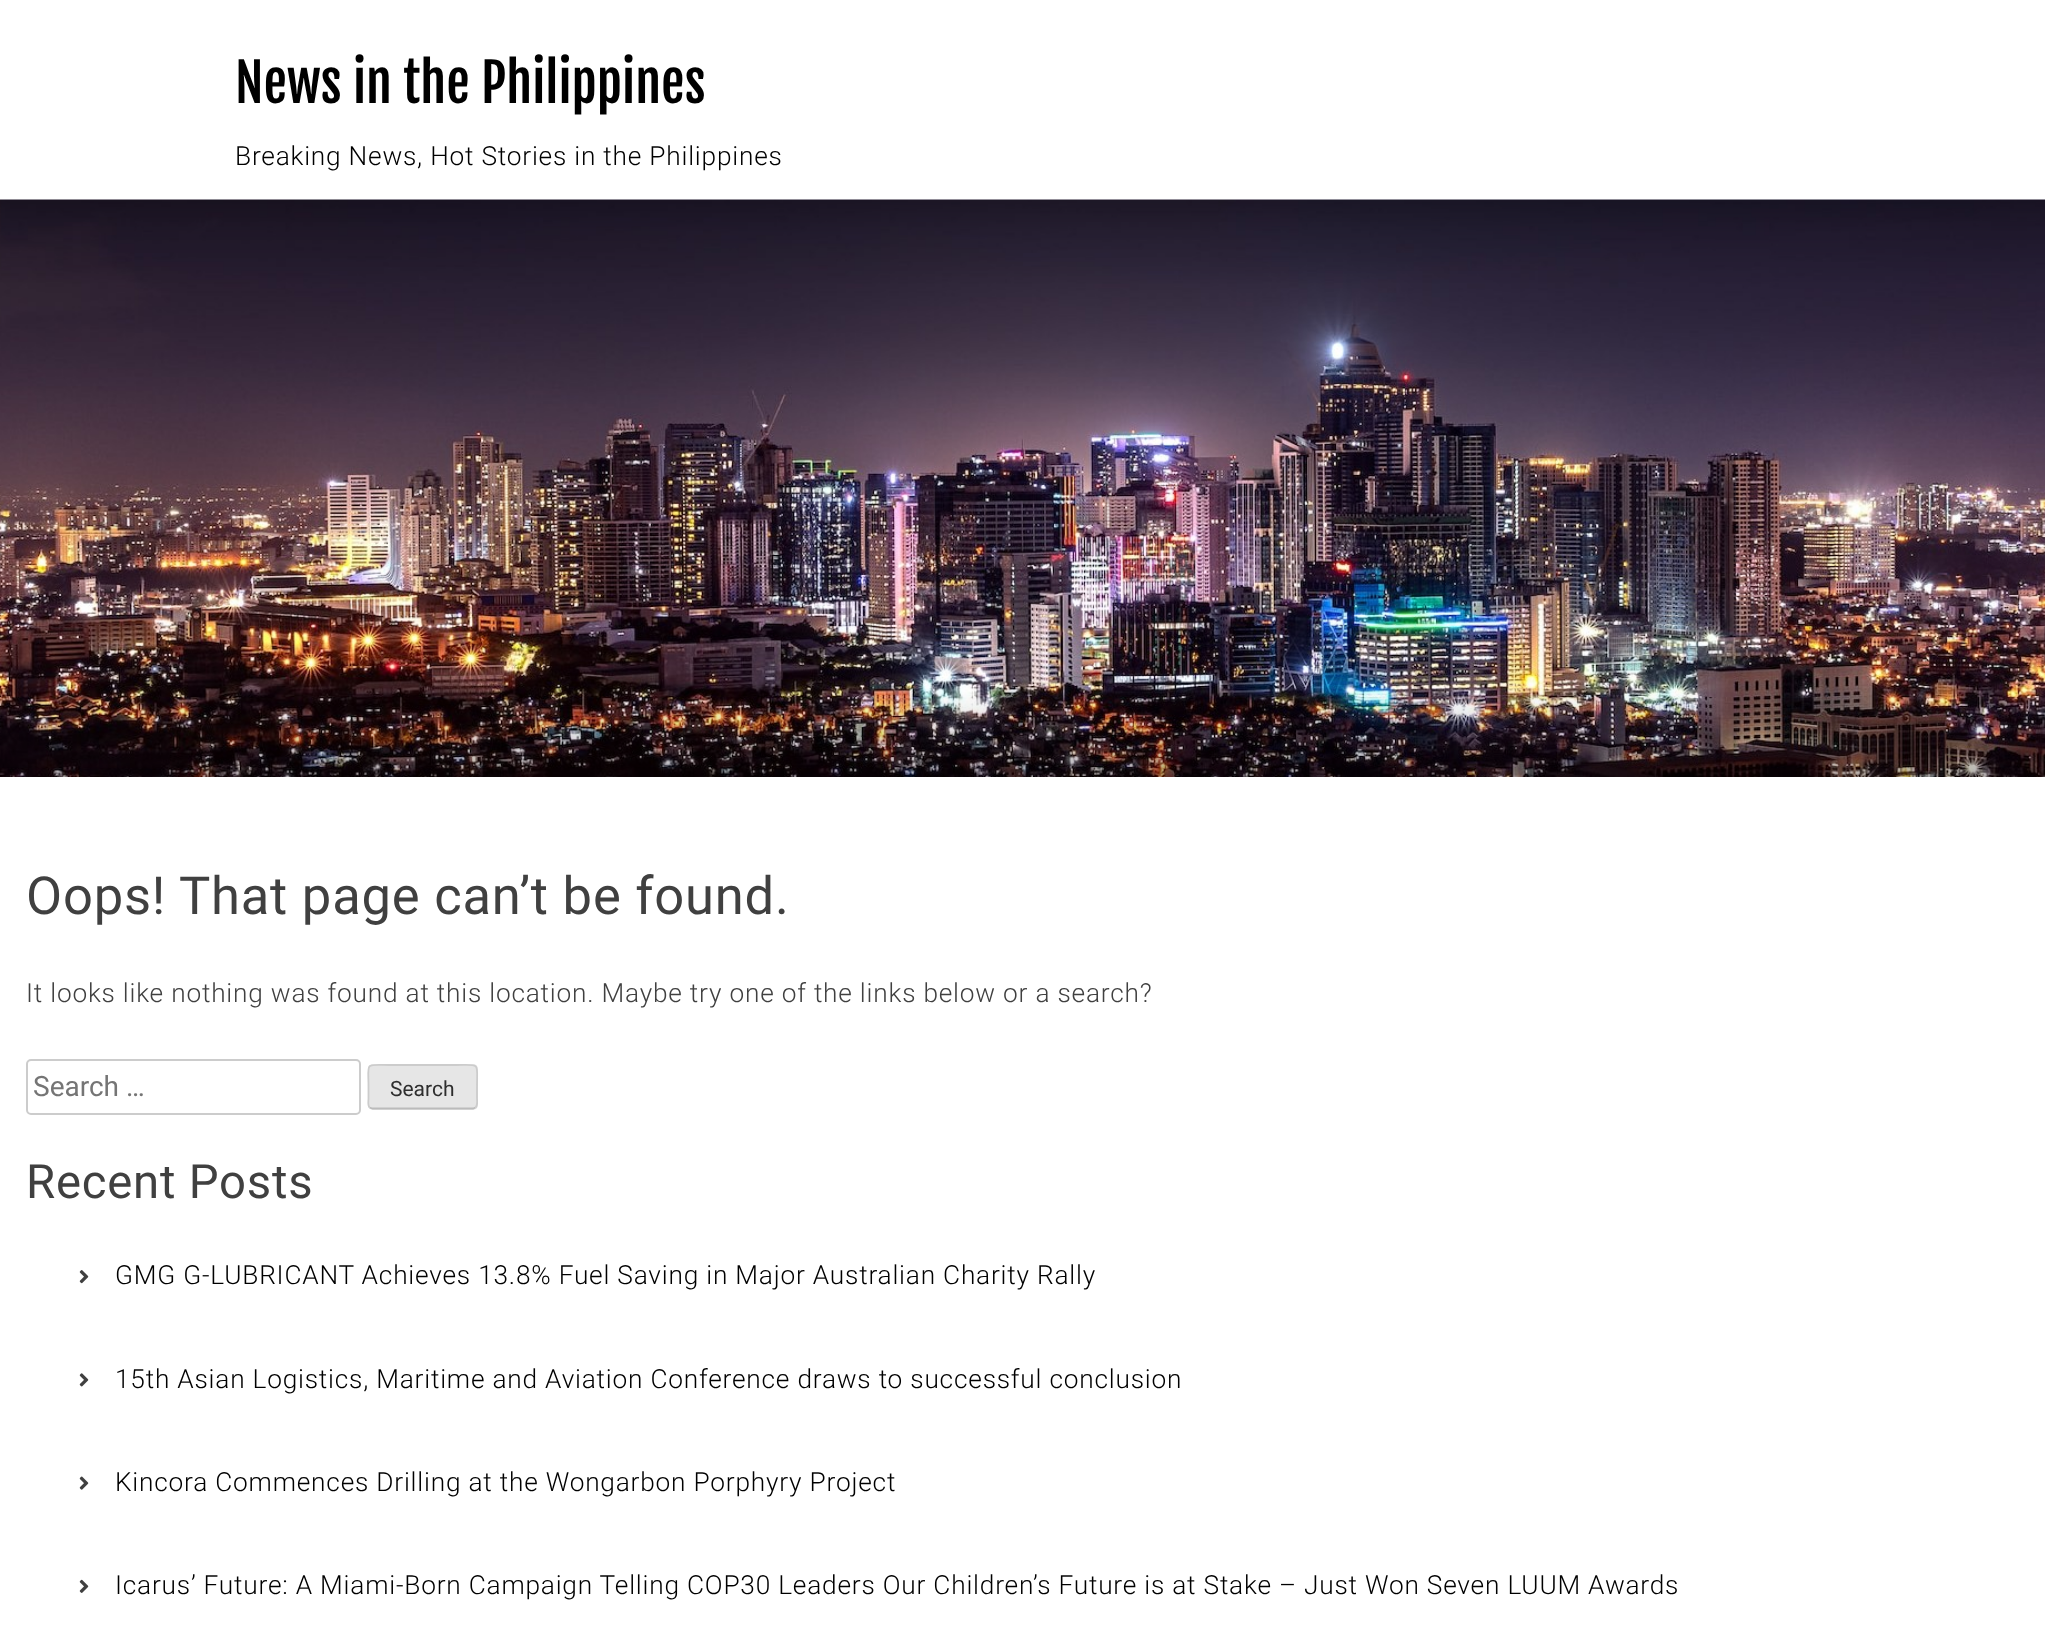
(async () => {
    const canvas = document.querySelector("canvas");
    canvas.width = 2045;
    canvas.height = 1652;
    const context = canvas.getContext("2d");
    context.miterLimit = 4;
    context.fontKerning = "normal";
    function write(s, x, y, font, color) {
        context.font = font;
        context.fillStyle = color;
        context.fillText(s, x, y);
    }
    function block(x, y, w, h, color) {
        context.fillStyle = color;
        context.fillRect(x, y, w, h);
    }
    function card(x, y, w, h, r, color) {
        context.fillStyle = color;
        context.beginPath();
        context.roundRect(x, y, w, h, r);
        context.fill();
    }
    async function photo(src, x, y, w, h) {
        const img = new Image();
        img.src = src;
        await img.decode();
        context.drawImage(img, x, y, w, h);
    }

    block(0, 0, 2045, 1652, "rgb(255, 255, 255)");
    write("News in the Philippines", 235, 103, "52.5px Fjalla One", "rgb(0, 0, 0)");
    context.letterSpacing = "0.79px";
    write("Breaking News, Hot Stories in the Philippines", 235, 165, "300 26.25px Roboto", "rgb(0, 0, 0)");
    await photo("media/1.png", 0, 199, 2045, 578);
    write("Oops! That page can’t be found.", 26, 914, "52.5px Roboto", "rgb(64, 64, 64)");
    write("It looks like nothing was found at this location. Maybe try one of the links below or a search?", 26, 1002, "300 26.25px Roboto", "rgb(64, 64, 64)");
    context.beginPath();
    context.roundRect(27, 1060, 333, 54, 4);
    context.strokeStyle = "rgb(204, 204, 204)";
    context.lineWidth = 2;
    context.stroke();
    context.letterSpacing = "0px";
    write("Search …", 33, 1096, "28px Roboto", "rgb(117, 117, 117)");
    card(368, 1064, 110, 46, 5, "rgb(230, 230, 230)");
    context.beginPath();
    context.moveTo(475.5, 1107.5);
    context.lineTo(473, 1108.5);
    context.lineTo(372.5, 1108.5);
    context.lineTo(369.5, 1107.5);
    context.strokeStyle = "rgb(187, 187, 187)";
    context.lineWidth = 1.8;
    context.stroke();
    context.beginPath();
    context.moveTo(369.5, 1107.5);
    context.bezierCurveTo(367.5, 1105, 368.5, 1101, 368.5, 1098.5);
    context.lineTo(368.5, 1087);
    context.bezierCurveTo(368.5, 1061.5, 364, 1065, 389.5, 1065);
    context.lineTo(456, 1065);
    context.bezierCurveTo(481, 1065, 477, 1061.5, 477, 1087);
    context.lineTo(477, 1098.5);
    context.bezierCurveTo(477, 1101, 478, 1105, 475.5, 1107.5);
    context.strokeStyle = "rgb(204, 204, 204)";
    context.stroke();
    write("Search", 390, 1096, "21px Roboto", "rgb(46, 46, 46)");
    context.letterSpacing = "0.79px";
    write("Recent Posts", 26, 1198, "47.25px Roboto", "rgb(64, 64, 64)");
    await photo("media/2.png", 79, 1270, 10, 14);
    write("GMG G-LUBRICANT Achieves 13.8% Fuel Saving in Major Australian Charity Rally", 115, 1284, "300 26.25px Roboto", "rgb(0, 0, 0)");
    await photo("media/3.png", 79, 1373, 10, 14);
    write("15th Asian Logistics, Maritime and Aviation Conference draws to successful conclusion", 115, 1388, "300 26.25px Roboto", "rgb(0, 0, 0)");
    await photo("media/4.png", 79, 1476, 10, 14);
    write("Kincora Commences Drilling at the Wongarbon Porphyry Project", 115, 1491, "300 26.25px Roboto", "rgb(0, 0, 0)");
    await photo("media/5.png", 79, 1579, 10, 14);
    write("Icarus’ Future: A Miami-Born Campaign Telling COP30 Leaders Our Children’s Future is at Stake – Just Won Seven LUUM Awards", 115, 1594, "300 26.25px Roboto", "rgb(0, 0, 0)");
})();
